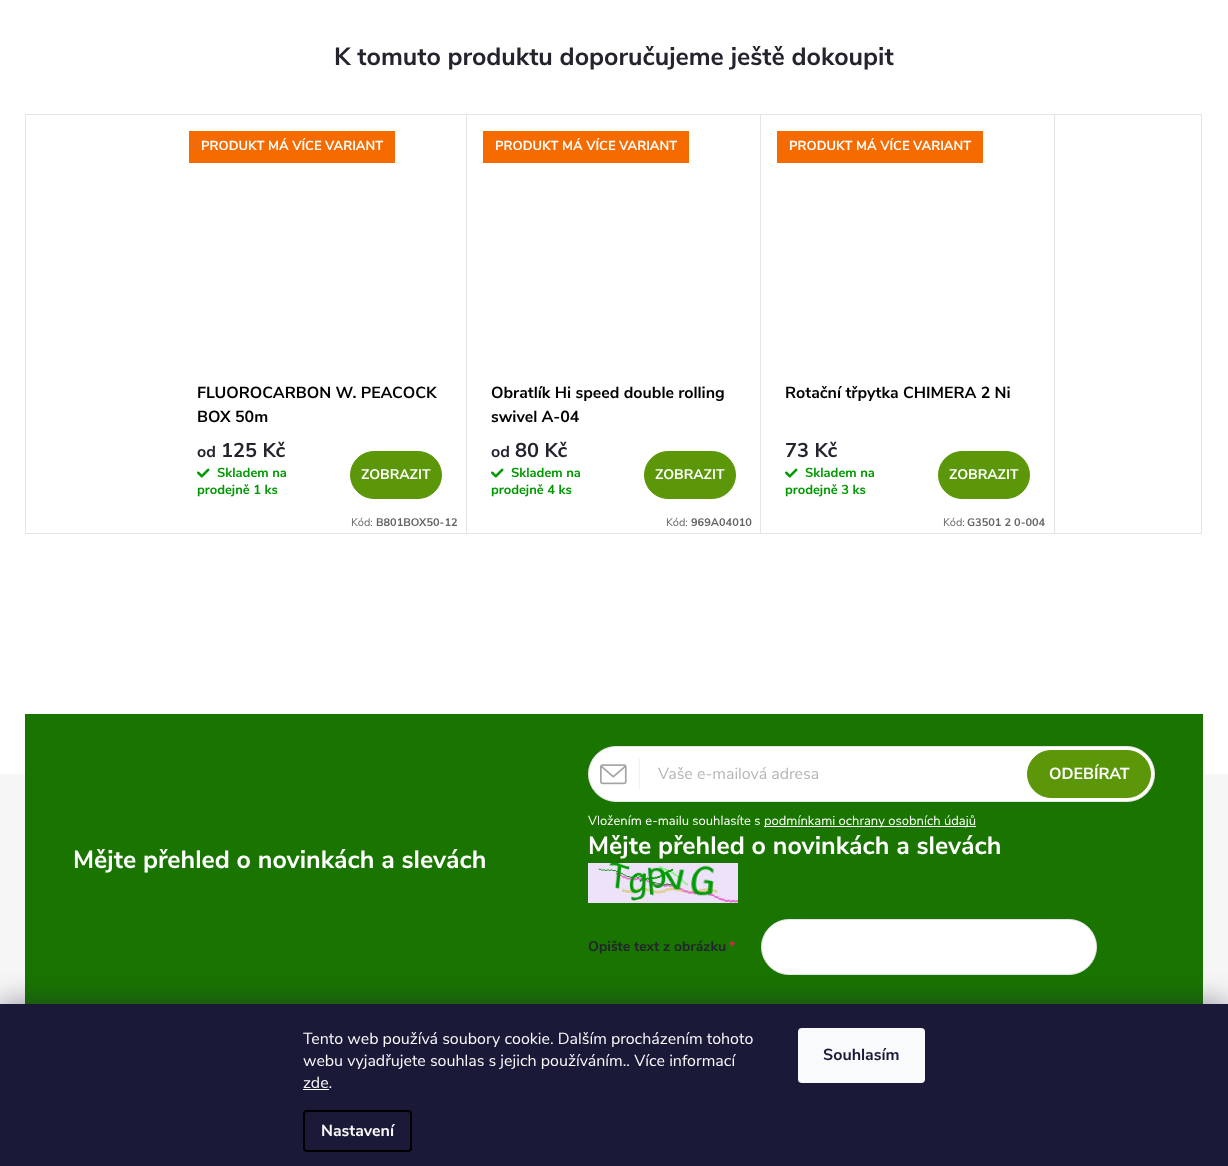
(async () => {
    const canvas = document.querySelector("canvas");
    canvas.width = 1228;
    canvas.height = 1166;
    const context = canvas.getContext("2d");
    context.miterLimit = 4;
    context.fontKerning = "normal";
    function write(s, x, y, font, color) {
        context.font = font;
        context.fillStyle = color;
        context.fillText(s, x, y);
    }
    function block(x, y, w, h, color) {
        context.fillStyle = color;
        context.fillRect(x, y, w, h);
    }
    function card(x, y, w, h, r, color) {
        context.fillStyle = color;
        context.beginPath();
        context.roundRect(x, y, w, h, r);
        context.fill();
    }
    async function photo(src, x, y, w, h) {
        const img = new Image();
        img.src = src;
        await img.decode();
        context.drawImage(img, x, y, w, h);
    }

    block(0, 0, 1228, 1166, "rgb(255, 255, 255)");
    write("K tomuto produktu doporučujeme ještě dokoupit", 334, 65, "bold 25px Nunito Sans", "rgb(36, 36, 46)");
    context.strokeStyle = "rgb(228, 228, 228)";
    context.strokeRect(25.5, 114.5, 1176, 419);
    block(466, 115, 1, 418, "rgb(228, 228, 228)");
    block(189, 131, 206, 32, "rgb(245, 107, 0)");
    write("PRODUKT MÁ VÍCE VARIANT", 201, 150, "bold 13px Nunito Sans", "rgb(255, 255, 255)");
    write("FLUOROCARBON W. PEACOCK", 197, 398, "bold 16px Nunito Sans", "rgb(0, 0, 0)");
    write("BOX 50m", 197, 422, "bold 16px Nunito Sans", "rgb(0, 0, 0)");
    write("od", 197, 457, "bold 16px Nunito Sans", "rgb(36, 36, 46)");
    write("125 Kč", 221, 457, "bold 20px Nunito Sans", "rgb(36, 36, 46)");
    await photo("media/1.png", 197, 468, 13, 10);
    write("Skladem na", 217, 477, "bold 13px Nunito Sans", "rgb(0, 153, 1)");
    write("prodejně 1 ks", 197, 494, "bold 13px Nunito Sans", "rgb(0, 153, 1)");
    context.fillStyle = "rgb(92, 151, 9)";
    context.beginPath();
    context.roundRect(350.5, 451.5, 91, 47, 23.5);
    context.fill();
    context.strokeStyle = "rgb(92, 151, 9)";
    context.stroke();
    write("ZOBRAZIT", 361, 479, "bold 14px Nunito Sans", "rgb(255, 255, 255)");
    write("Kód:", 351, 526, "11px Nunito Sans", "rgb(101, 101, 101)");
    write("B801BOX50-12", 376, 526, "bold 11px Nunito Sans", "rgb(101, 101, 101)");
    block(760, 115, 1, 418, "rgb(228, 228, 228)");
    block(483, 131, 206, 32, "rgb(245, 107, 0)");
    write("PRODUKT MÁ VÍCE VARIANT", 495, 150, "bold 13px Nunito Sans", "rgb(255, 255, 255)");
    write("Obratlík Hi speed double rolling", 491, 398, "bold 16px Nunito Sans", "rgb(0, 0, 0)");
    write("swivel A-04", 491, 422, "bold 16px Nunito Sans", "rgb(0, 0, 0)");
    write("od", 491, 457, "bold 16px Nunito Sans", "rgb(36, 36, 46)");
    write("80 Kč", 515, 457, "bold 20px Nunito Sans", "rgb(36, 36, 46)");
    await photo("media/1.png", 491, 468, 13, 10);
    write("Skladem na", 511, 477, "bold 13px Nunito Sans", "rgb(0, 153, 1)");
    write("prodejně 4 ks", 491, 494, "bold 13px Nunito Sans", "rgb(0, 153, 1)");
    context.fillStyle = "rgb(92, 151, 9)";
    context.beginPath();
    context.roundRect(644.5, 451.5, 91, 47, 23.5);
    context.fill();
    context.stroke();
    write("ZOBRAZIT", 655, 479, "bold 14px Nunito Sans", "rgb(255, 255, 255)");
    write("Kód:", 666, 526, "11px Nunito Sans", "rgb(101, 101, 101)");
    write("969A04010", 691, 526, "bold 11px Nunito Sans", "rgb(101, 101, 101)");
    block(1054, 115, 1, 418, "rgb(228, 228, 228)");
    block(777, 131, 206, 32, "rgb(245, 107, 0)");
    write("PRODUKT MÁ VÍCE VARIANT", 789, 150, "bold 13px Nunito Sans", "rgb(255, 255, 255)");
    write("Rotační třpytka CHIMERA 2 Ni", 785, 398, "bold 16px Nunito Sans", "rgb(0, 0, 0)");
    write("73 Kč", 785, 457, "bold 20px Nunito Sans", "rgb(36, 36, 46)");
    await photo("media/1.png", 785, 468, 13, 10);
    write("Skladem na", 805, 477, "bold 13px Nunito Sans", "rgb(0, 153, 1)");
    write("prodejně 3 ks", 785, 494, "bold 13px Nunito Sans", "rgb(0, 153, 1)");
    context.fillStyle = "rgb(92, 151, 9)";
    context.beginPath();
    context.roundRect(938.5, 451.5, 91, 47, 23.5);
    context.fill();
    context.stroke();
    write("ZOBRAZIT", 949, 479, "bold 14px Nunito Sans", "rgb(255, 255, 255)");
    write("Kód:", 943, 526, "11px Nunito Sans", "rgb(101, 101, 101)");
    write("G3501 2 0-004", 967, 526, "bold 11px Nunito Sans", "rgb(101, 101, 101)");
    block(0, 774, 1228, 230, "rgb(246, 246, 246)");
    block(25, 714, 1178, 290, "rgb(25, 117, 0)");
    write("Mějte přehled o novinkách a slevách", 73, 868, "bold 25px Nunito Sans", "rgb(255, 255, 255)");
    context.beginPath();
    context.roundRect(588.5, 746.5, 566, 55, 27.5);
    context.fill();
    context.strokeStyle = "rgb(228, 228, 228)";
    context.stroke();
    block(639, 758, 1, 32, "rgb(241, 241, 241)");
    await photo("media/2.png", 600, 764, 27, 21);
    write("Vaše e-mailová adresa", 658, 779, "16px Nunito Sans", "rgb(182, 182, 182)");
    context.fillStyle = "rgb(92, 151, 9)";
    context.beginPath();
    context.roundRect(1027.5, 750.5, 123, 47, 23.5);
    context.fill();
    context.strokeStyle = "rgb(92, 151, 9)";
    context.stroke();
    write("ODEBÍRAT", 1049, 779, "bold 16px Nunito Sans", "rgb(255, 255, 255)");
    write("Vložením e-mailu souhlasíte s", 588, 825, "13px Nunito Sans", "rgb(255, 255, 255)");
    block(764, 826, 212, 1, "rgb(255, 255, 255)");
    write("podmínkami ochrany osobních údajů", 764, 825, "13px Nunito Sans", "rgb(255, 255, 255)");
    write("Mějte přehled o novinkách a slevách", 588, 854, "bold 25px Nunito Sans", "rgb(255, 255, 255)");
    await photo("media/3.png", 588, 863, 150, 40);
    write("Opište text z obrázku", 588, 951, "bold 14px Nunito Sans", "rgb(36, 36, 46)");
    write("*", 729, 951, "bold 14px Nunito Sans", "rgb(227, 30, 83)");
    context.fillStyle = "rgb(255, 255, 255)";
    context.beginPath();
    context.roundRect(761.5, 919.5, 335, 55, 27.5);
    context.fill();
    context.strokeStyle = "rgb(228, 228, 228)";
    context.stroke();
    context.fillStyle = "rgba(27, 25, 57, 0.5)";
    context.filter = "blur(15px)";
    context.beginPath();
    context.rect(0, 1004, 1228, 162);
    context.fill();
    context.filter = "none";
    block(0, 1004, 1228, 162, "rgb(26, 25, 55)");
    write("Tento web používá soubory cookie. Dalším procházením tohoto", 303, 1044, "16px Nunito Sans", "rgb(248, 250, 251)");
    write("webu vyjadřujete souhlas s jejich používáním.. Více informací", 303, 1066, "16px Nunito Sans", "rgb(248, 250, 251)");
    write("zde.", 303, 1088, "16px Nunito Sans", "rgb(248, 250, 251)");
    block(303, 1089, 26, 1, "rgb(248, 250, 251)");
    context.beginPath();
    context.roundRect(304, 1111, 107, 40, 3);
    context.strokeStyle = "rgb(0, 0, 0)";
    context.lineWidth = 2;
    context.stroke();
    write("Nastavení", 321, 1136, "bold 16px Nunito Sans", "rgb(248, 250, 251)");
    card(798, 1028, 127, 55, 4, "rgb(248, 250, 251)");
    write("Souhlasím", 823, 1060, "bold 16px Nunito Sans", "rgb(26, 25, 55)");
})();
